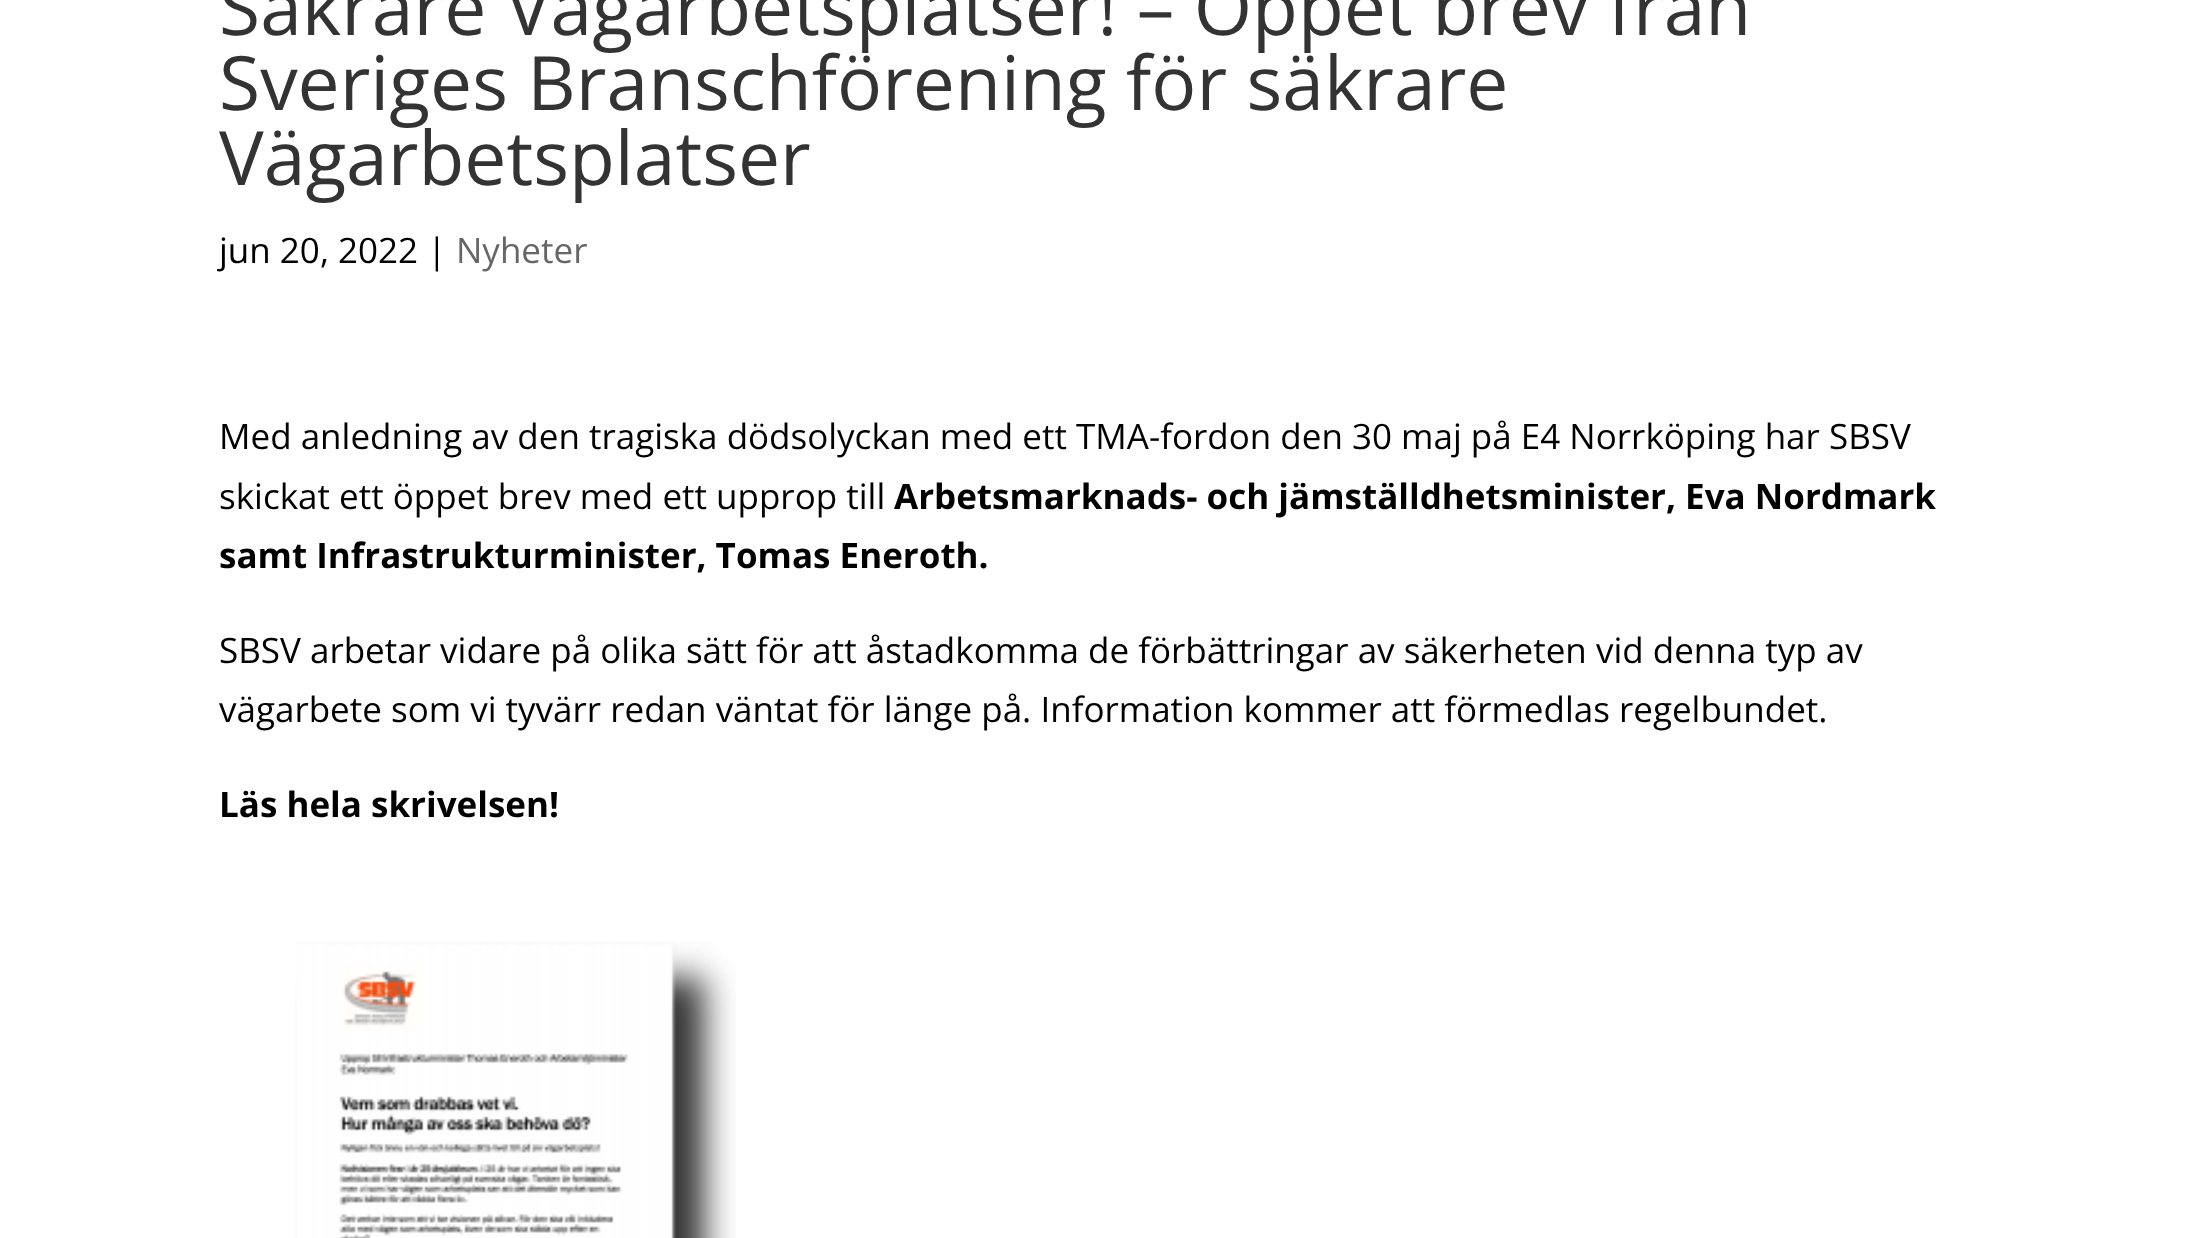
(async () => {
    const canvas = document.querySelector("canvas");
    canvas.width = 2189;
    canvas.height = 1238;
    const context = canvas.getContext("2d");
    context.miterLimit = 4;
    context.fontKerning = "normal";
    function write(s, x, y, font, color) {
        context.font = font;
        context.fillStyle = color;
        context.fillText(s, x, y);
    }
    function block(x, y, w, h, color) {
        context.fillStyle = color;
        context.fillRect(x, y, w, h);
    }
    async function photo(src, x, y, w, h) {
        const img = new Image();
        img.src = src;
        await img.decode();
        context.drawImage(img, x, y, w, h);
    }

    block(0, 0, 2189, 1238, "rgb(255, 255, 255)");
    write("Säkrare Vägarbetsplatser! – Öppet brev från", 219, 35, "75px Open Sans", "rgb(51, 51, 51)");
    write("Sveriges Branschförening för säkrare", 219, 110, "75px Open Sans", "rgb(51, 51, 51)");
    write("Vägarbetsplatser", 219, 185, "75px Open Sans", "rgb(51, 51, 51)");
    write("jun 20, 2022 |", 219, 263, "35px Open Sans", "rgb(0, 0, 0)");
    write("Nyheter", 456, 263, "35px Open Sans", "rgb(102, 102, 102)");
    write("Med anledning av den tragiska dödsolyckan med ett TMA-fordon den 30 maj på E4 Norrköping har SBSV", 219, 449, "35px Open Sans", "rgb(0, 0, 0)");
    write("skickat ett öppet brev med ett upprop till", 219, 509, "35px Open Sans", "rgb(0, 0, 0)");
    write("Arbetsmarknads- och jämställdhetsminister, Eva Nordmark", 894, 509, "bold 35px Open Sans", "rgb(0, 0, 0)");
    write("samt Infrastrukturminister, Tomas Eneroth.", 219, 568, "bold 35px Open Sans", "rgb(0, 0, 0)");
    write("SBSV arbetar vidare på olika sätt för att åstadkomma de förbättringar av säkerheten vid denna typ av", 219, 663, "35px Open Sans", "rgb(0, 0, 0)");
    write("vägarbete som vi tyvärr redan väntat för länge på. Information kommer att förmedlas regelbundet.", 219, 722, "35px Open Sans", "rgb(0, 0, 0)");
    write("Läs hela skrivelsen!", 219, 817, "bold 35px Open Sans", "rgb(0, 0, 0)");
    await photo("media/1.png", 295, 941, 441, 297);
})();
